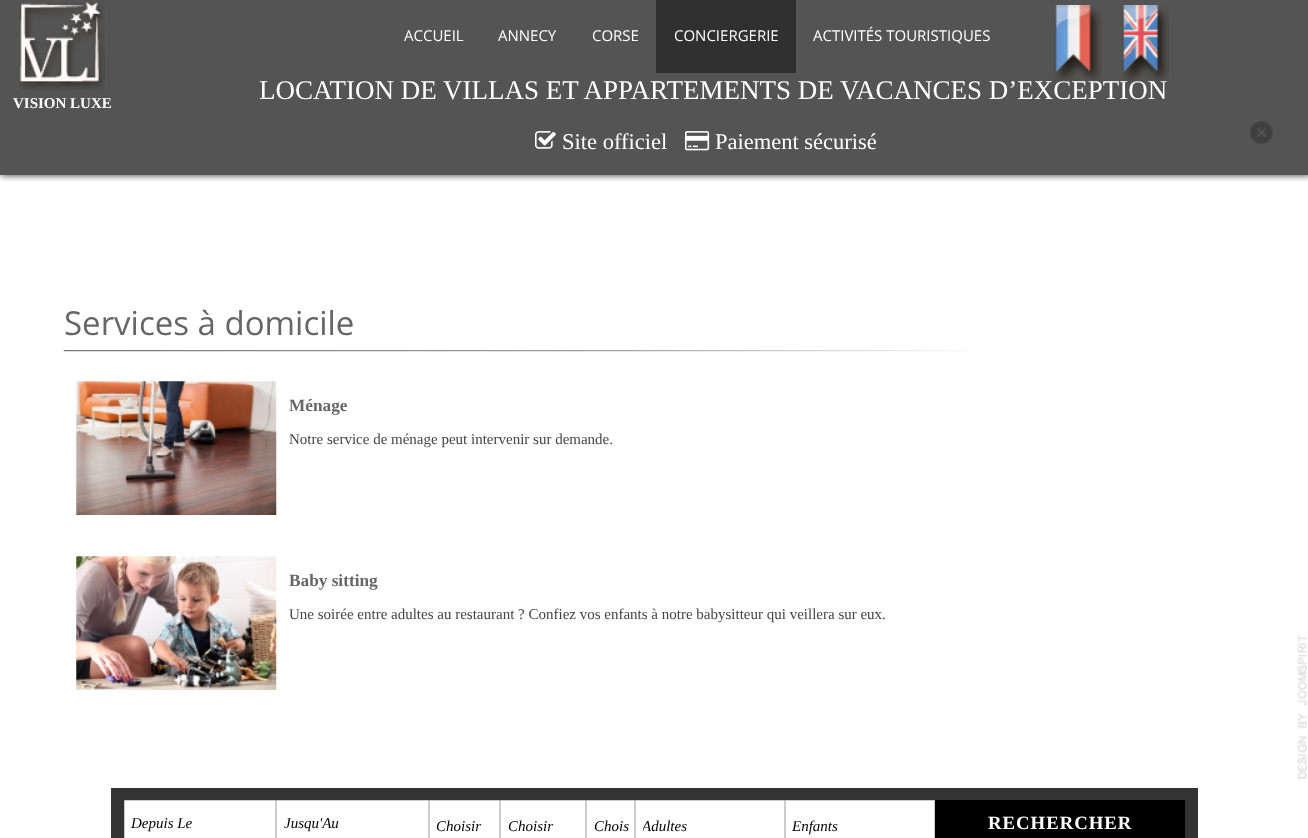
(async () => {
    const canvas = document.querySelector("canvas");
    canvas.width = 1308;
    canvas.height = 838;
    const context = canvas.getContext("2d");
    context.miterLimit = 4;
    context.fontKerning = "normal";
    function write(s, x, y, font, color) {
        context.font = font;
        context.fillStyle = color;
        context.fillText(s, x, y);
    }
    function block(x, y, w, h, color) {
        context.fillStyle = color;
        context.fillRect(x, y, w, h);
    }
    async function photo(src, x, y, w, h) {
        const img = new Image();
        img.src = src;
        await img.decode();
        context.drawImage(img, x, y, w, h);
    }

    block(0, 0, 1308, 838, "rgb(255, 255, 255)");
    block(0, 0, 1308, 175, "rgb(84, 84, 84)");
    await photo("media/6.png", 1249, 121, 24, 23);
    context.save();
    context.beginPath();
    context.rect(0, 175, 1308, 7);
    context.clip();
    context.fillStyle = "rgba(0, 0, 0, 0.65)";
    context.filter = "blur(3px)";
    context.beginPath();
    context.rect(1, 1, 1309, 175);
    context.fill();
    context.filter = "none";
    context.restore();
    write("LOCATION DE VILLAS ET APPARTEMENTS DE VACANCES D’EXCEPTION", 259, 99, "27px Liberation Serif", "rgb(255, 255, 255)");
    await photo("media/1.png", 1054, 5, 48, 79);
    await photo("media/2.png", 1122, 5, 47, 80);
    write("ACCUEIL", 404, 41, "15px Open Sans", "rgb(255, 255, 255)");
    write("ANNECY", 498, 41, "15px Open Sans", "rgb(255, 255, 255)");
    write("CORSE", 592, 41, "15px Open Sans", "rgb(255, 255, 255)");
    block(656, 0, 140, 73, "rgb(48, 48, 48)");
    write("CONCIERGERIE", 674, 41, "15px Open Sans", "rgb(255, 255, 255)");
    write("ACTIVITÉS TOURISTIQUES", 813, 41, "15px Open Sans", "rgb(255, 255, 255)");
    await photo("media/3.png", 19, 2, 86, 88);
    write("VISION LUXE", 13, 108, "bold 15px Liberation Serif", "rgb(255, 255, 255)");
    await photo("media/4.png", 535, 131, 21, 18);
    write("Site officiel", 562, 149, "22.5px Liberation Serif", "rgb(255, 255, 255)");
    await photo("media/5.png", 685, 131, 25, 20);
    write("Paiement sécurisé", 715, 149, "22.5px Liberation Serif", "rgb(255, 255, 255)");
    await photo("media/7.png", 63, 350, 907, 2);
    write("Services à domicile", 64, 335, "33px Open Sans", "rgb(102, 102, 102)");
    await photo("media/8.png", 76, 381, 201, 134);
    write("Ménage", 289, 411, "bold 17.25px Liberation Serif", "rgb(102, 102, 102)");
    write("Notre service de ménage peut intervenir sur demande.", 289, 444, "15px Liberation Serif", "rgb(68, 68, 68)");
    await photo("media/9.png", 76, 556, 201, 134);
    write("Baby sitting", 289, 586, "bold 17.25px Liberation Serif", "rgb(102, 102, 102)");
    write("Une soirée entre adultes au restaurant ? Confiez vos enfants à notre babysitteur qui veillera sur eux.", 289, 619, "15px Liberation Serif", "rgb(68, 68, 68)");
    block(111, 788, 1087, 50, "rgb(51, 51, 51)");
    context.fillStyle = "rgb(255, 255, 255)";
    context.beginPath();
    context.rect(124.5, 800.5, 151, 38);
    context.fill();
    context.strokeStyle = "rgb(204, 204, 204)";
    context.stroke();
    write("Depuis Le", 131, 828, "italic 15px Liberation Serif", "rgb(0, 0, 0)");
    context.fillStyle = "rgb(255, 255, 255)";
    context.beginPath();
    context.rect(276.5, 800.5, 152, 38);
    context.fill();
    context.stroke();
    write("Jusqu'Au", 284, 828, "italic 15px Liberation Serif", "rgb(0, 0, 0)");
    context.fillStyle = "rgb(255, 255, 255)";
    context.beginPath();
    context.rect(429.5, 800.5, 70, 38);
    context.fill();
    context.stroke();
    write("Choisir", 436, 831, "italic 15px Liberation Serif", "rgb(0, 0, 0)");
    context.fillStyle = "rgb(255, 255, 255)";
    context.beginPath();
    context.rect(500.5, 800.5, 85, 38);
    context.fill();
    context.stroke();
    write("Choisir", 508, 831, "italic 15px Liberation Serif", "rgb(0, 0, 0)");
    context.fillStyle = "rgb(255, 255, 255)";
    context.beginPath();
    context.rect(586.5, 800.5, 48, 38);
    context.fill();
    context.stroke();
    write("Chois", 594, 831, "italic 15px Liberation Serif", "rgb(0, 0, 0)");
    context.fillStyle = "rgb(255, 255, 255)";
    context.beginPath();
    context.rect(635.5, 800.5, 149, 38);
    context.fill();
    context.stroke();
    context.save();
    context.beginPath();
    context.rect(643, 808, 61, 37);
    context.clip();
    write("Adultes", 642, 831, "italic 15px Liberation Serif", "rgb(0, 0, 0)");
    context.restore();
    context.beginPath();
    context.rect(785.5, 800.5, 149, 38);
    context.fill();
    context.stroke();
    write("Enfants", 792, 831, "italic 15px Liberation Serif", "rgb(0, 0, 0)");
    block(935, 800, 250, 38, "rgb(0, 0, 0)");
    context.letterSpacing = "1px";
    write("RECHERCHER", 988, 829, "bold 18.75px Liberation Serif", "rgb(255, 255, 255)");
    await photo("media/10.png", 1297, 635, 10, 144);
})();
